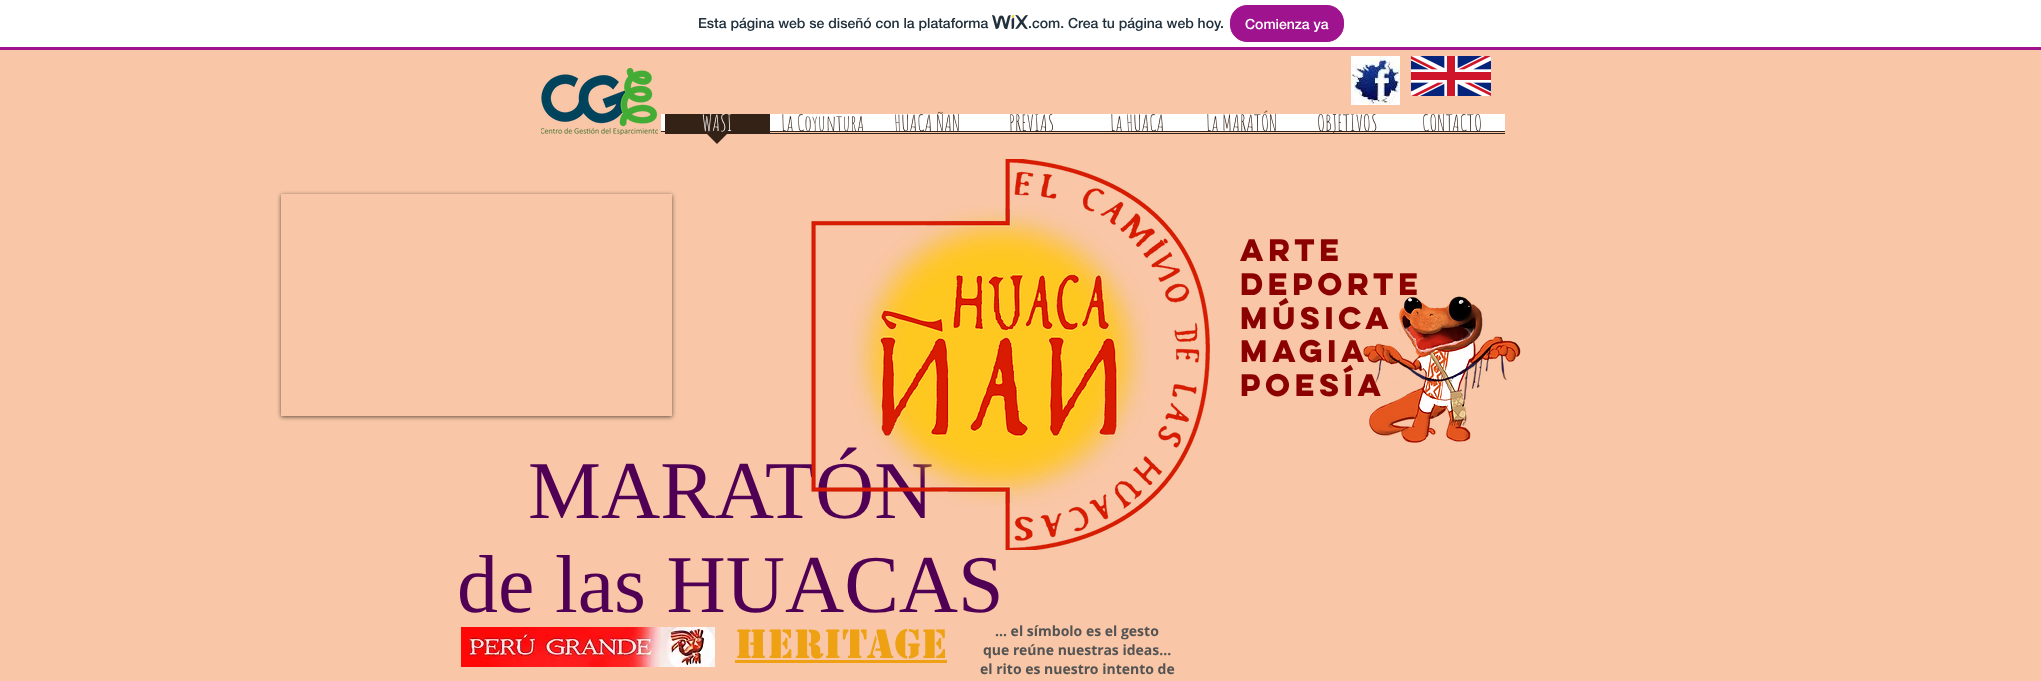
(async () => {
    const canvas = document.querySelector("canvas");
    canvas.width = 2041;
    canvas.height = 681;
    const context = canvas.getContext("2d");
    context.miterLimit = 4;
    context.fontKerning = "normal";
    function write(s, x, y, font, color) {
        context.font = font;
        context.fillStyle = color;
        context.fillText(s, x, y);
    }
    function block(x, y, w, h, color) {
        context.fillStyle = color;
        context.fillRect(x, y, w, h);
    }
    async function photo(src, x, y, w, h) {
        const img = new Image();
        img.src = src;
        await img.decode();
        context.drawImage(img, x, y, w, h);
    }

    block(0, 0, 2041, 681, "rgb(255, 255, 255)");
    block(0, 47, 2041, 3, "rgb(160, 19, 142)");
    write("Esta página web se diseñó con la plataforma", 698, 28, "500 14px 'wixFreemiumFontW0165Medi'", "rgb(32, 48, 60)");
    await photo("media/1.png", 992, 15, 36, 15);
    write(".com. Crea tu página web hoy.", 1028, 28, "500 14px 'wixFreemiumFontW0165Medi'", "rgb(32, 48, 60)");
    context.fillStyle = "rgb(160, 19, 142)";
    context.beginPath();
    context.roundRect(1230.5, 5.5, 113, 36, 16.5);
    context.fill();
    context.strokeStyle = "rgb(160, 19, 142)";
    context.stroke();
    write("Comienza ya", 1245, 29, "500 14px 'wixFreemiumFontW0165Medi'", "rgb(255, 255, 255)");
    block(0, 50, 2041, 631, "rgb(249, 199, 167)");
    await photo("media/2.png", 541, 68, 117, 67);
    await photo("media/3.png", 1351, 56, 49, 49);
    await photo("media/4.png", 1411, 56, 80, 40);
    block(661, 114, 844, 17, "rgb(255, 255, 255)");
    block(661, 131, 844, 1, "rgb(52, 34, 22)");
    block(665, 114, 105, 20, "rgb(52, 34, 22)");
    write("WASI", 702, 131, "22px Amatic SC", "rgb(255, 255, 255)");
    context.fillStyle = "rgb(52, 34, 22)";
    context.beginPath();
    context.moveTo(706, 133);
    context.lineTo(728, 133);
    context.lineTo(717, 144);
    context.closePath();
    context.fill();
    write("La Coyuntura", 781, 131, "22px Amatic SC", "rgb(52, 34, 22)");
    block(770, 133, 735, 1, "rgb(52, 34, 22)");
    write("HUACA ÑAN", 894, 131, "22px Amatic SC", "rgb(52, 34, 22)");
    write("PREVIAS", 1009, 131, "22px Amatic SC", "rgb(52, 34, 22)");
    write("La HUACA", 1110, 131, "22px Amatic SC", "rgb(52, 34, 22)");
    write("La MARATÓN", 1206, 131, "22px Amatic SC", "rgb(52, 34, 22)");
    write("OBJETIVOS", 1317, 131, "22px Amatic SC", "rgb(52, 34, 22)");
    write("CONTACTO", 1422, 131, "22px Amatic SC", "rgb(52, 34, 22)");
    context.save();
    context.beginPath();
    context.moveTo(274, 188);
    context.lineTo(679, 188);
    context.lineTo(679, 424);
    context.lineTo(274, 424);
    context.closePath();
    context.moveTo(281, 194);
    context.lineTo(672, 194);
    context.lineTo(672, 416);
    context.lineTo(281, 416);
    context.closePath();
    context.clip("evenodd");
    context.fillStyle = "rgba(0, 0, 0, 0.6)";
    context.filter = "blur(2px)";
    context.beginPath();
    context.rect(281, 195, 391, 222);
    context.fill();
    context.filter = "none";
    context.restore();
    write("MARATÓN", 528, 518, "82px Liberation Serif", "rgb(80, 0, 84)");
    await photo("media/5.png", 811, 159, 399, 391);
    context.letterSpacing = "-1.5px";
    write("ARTE", 1240, 261, "bold 28px 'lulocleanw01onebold'", "rgb(139, 0, 0)");
    write("DEPORTE", 1240, 295, "bold 28px 'lulocleanw01onebold'", "rgb(139, 0, 0)");
    write("MÚSICA", 1240, 329, "bold 28px 'lulocleanw01onebold'", "rgb(139, 0, 0)");
    write("MAGIA", 1240, 362, "bold 28px 'lulocleanw01onebold'", "rgb(139, 0, 0)");
    write("POESÍA", 1240, 396, "bold 28px 'lulocleanw01onebold'", "rgb(139, 0, 0)");
    await photo("media/6.png", 1363, 296, 158, 147);
    context.letterSpacing = "0px";
    write("de las HUACAS", 457, 612, "82px Liberation Serif", "rgb(80, 0, 84)");
    await photo("media/7.png", 461, 627, 254, 40);
    context.letterSpacing = "0.75px";
    write("heritage", 735, 658, "bold 38px 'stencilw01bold'", "rgb(237, 161, 19)");
    block(735, 660, 212, 3, "rgb(237, 161, 19)");
    context.letterSpacing = "0px";
    write("... el símbolo es el gesto", 995, 636, "bold 14px Open Sans", "rgb(83, 83, 83)");
    write("que reúne nuestras ideas...", 983, 655, "bold 14px Open Sans", "rgb(83, 83, 83)");
    write("el rito es nuestro intento de", 980, 674, "bold 14px Open Sans", "rgb(83, 83, 83)");
})();
